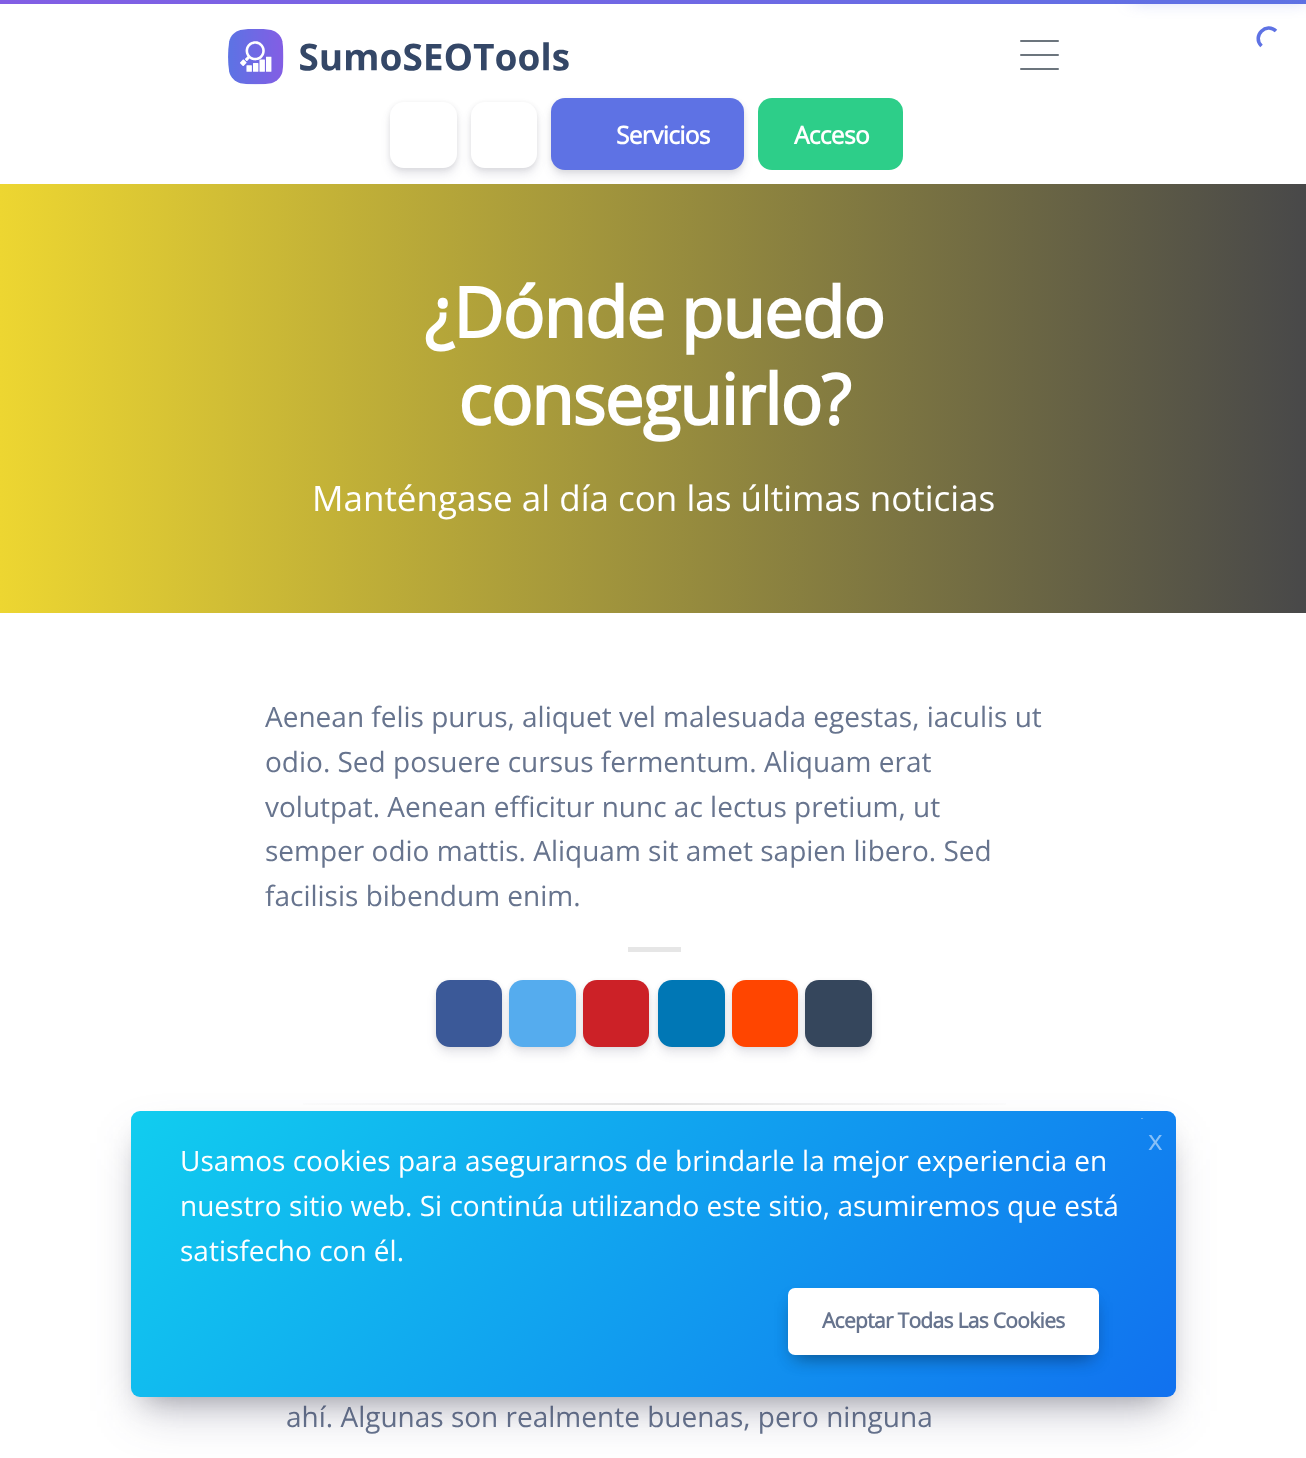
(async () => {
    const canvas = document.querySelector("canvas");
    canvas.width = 1306;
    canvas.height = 1458;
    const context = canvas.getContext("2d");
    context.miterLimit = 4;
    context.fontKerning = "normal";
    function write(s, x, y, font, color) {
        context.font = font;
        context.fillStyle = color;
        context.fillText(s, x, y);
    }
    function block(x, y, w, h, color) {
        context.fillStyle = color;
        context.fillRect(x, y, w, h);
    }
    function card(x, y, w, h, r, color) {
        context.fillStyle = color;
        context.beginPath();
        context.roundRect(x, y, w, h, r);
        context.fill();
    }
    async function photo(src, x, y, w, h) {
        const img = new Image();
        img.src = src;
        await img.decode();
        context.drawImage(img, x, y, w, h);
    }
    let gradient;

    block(0, 0, 1306, 1458, "rgb(255, 255, 255)");
    gradient = context.createLinearGradient(1038, 324, 269, -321);
    gradient.addColorStop(0, "rgb(94, 114, 228)");
    gradient.addColorStop(1, "rgb(130, 94, 228)");
    context.fillStyle = gradient;
    context.fillRect(0, 0, 1306, 4);
    context.fillStyle = "rgb(94, 114, 228)";
    context.filter = "blur(9px)";
    context.beginPath();
    context.rect(1132, -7, 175, 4);
    context.fill();
    context.filter = "none";
    context.beginPath();
    context.moveTo(1261.5, 46);
    context.bezierCurveTo(1251.5, 36, 1266.5, 21.5, 1276, 31);
    context.strokeStyle = "rgb(94, 114, 228)";
    context.lineWidth = 3.5;
    context.stroke();
    await photo("media/1.png", 228, 29, 341, 56);
    card(1020, 40, 39, 2, 1, "rgb(108, 117, 125)");
    card(1020, 54, 39, 2, 1, "rgb(108, 117, 125)");
    card(1020, 68, 39, 2, 1, "rgb(108, 117, 125)");
    context.fillStyle = "rgba(0, 0, 0, 0.08)";
    context.filter = "blur(2.5px)";
    context.beginPath();
    context.roundRect(390, 103, 67, 67, 14);
    context.fill();
    context.filter = "none";
    context.fillStyle = "rgba(50, 50, 93, 0.1)";
    context.filter = "blur(5px)";
    context.beginPath();
    context.roundRect(390, 109, 67, 66, 14);
    context.fill();
    context.filter = "none";
    card(390, 102, 67, 66, 14, "rgb(255, 255, 255)");
    context.fillStyle = "rgba(0, 0, 0, 0.08)";
    context.filter = "blur(2.5px)";
    context.beginPath();
    context.roundRect(471, 103, 66, 67, 14);
    context.fill();
    context.filter = "none";
    context.fillStyle = "rgba(50, 50, 93, 0.1)";
    context.filter = "blur(5px)";
    context.beginPath();
    context.roundRect(471, 109, 66, 66, 14);
    context.fill();
    context.filter = "none";
    card(471, 102, 66, 66, 14, "rgb(255, 255, 255)");
    context.fillStyle = "rgba(0, 0, 0, 0.08)";
    context.filter = "blur(2.5px)";
    context.beginPath();
    context.roundRect(551, 100, 193, 72, 14);
    context.fill();
    context.filter = "none";
    context.fillStyle = "rgba(50, 50, 93, 0.1)";
    context.filter = "blur(5px)";
    context.beginPath();
    context.roundRect(551, 105, 193, 72, 14);
    context.fill();
    context.filter = "none";
    card(551, 98, 193, 72, 14, "rgb(94, 114, 228)");
    context.letterSpacing = "-0.7px";
    write("Servicios", 616, 144, "bold 24.5px Open Sans", "rgb(255, 255, 255)");
    card(758, 98, 145, 72, 14, "rgb(45, 206, 137)");
    write("Acceso", 794, 144, "bold 24.5px Open Sans", "rgb(255, 255, 255)");
    gradient = context.createLinearGradient(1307, 398, 0, 398);
    gradient.addColorStop(0, "rgb(72, 72, 73)");
    gradient.addColorStop(1, "rgb(237, 214, 49)");
    context.fillStyle = gradient;
    context.fillRect(0, 184, 1306, 429);
    context.letterSpacing = "-1.4px";
    write("¿Dónde puedo", 424, 338, "bold 70px Open Sans", "rgb(255, 255, 255)");
    write("conseguirlo?", 458, 425, "bold 70px Open Sans", "rgb(255, 255, 255)");
    context.letterSpacing = "0px";
    write("Manténgase al día con las últimas noticias", 312, 511, "35px Open Sans", "rgb(255, 255, 255)");
    write("Aenean felis purus, aliquet vel malesuada egestas, iaculis ut", 265, 727, "28px Open Sans", "rgb(103, 116, 142)");
    write("odio. Sed posuere cursus fermentum. Aliquam erat", 265, 772, "28px Open Sans", "rgb(103, 116, 142)");
    write("volutpat. Aenean efficitur nunc ac lectus pretium, ut", 265, 817, "28px Open Sans", "rgb(103, 116, 142)");
    write("semper odio mattis. Aliquam sit amet sapien libero. Sed", 265, 861, "28px Open Sans", "rgb(103, 116, 142)");
    write("facilisis bibendum enim.", 265, 906, "28px Open Sans", "rgb(103, 116, 142)");
    block(628, 947, 53, 5, "rgb(230, 230, 230)");
    context.fillStyle = "rgba(0, 0, 0, 0.08)";
    context.filter = "blur(2.5px)";
    context.beginPath();
    context.roundRect(436, 982, 66, 66, 14);
    context.fill();
    context.filter = "none";
    context.fillStyle = "rgba(50, 50, 93, 0.1)";
    context.filter = "blur(5px)";
    context.beginPath();
    context.roundRect(436, 987, 66, 67, 14);
    context.fill();
    context.filter = "none";
    card(436, 980, 66, 67, 14, "rgb(59, 89, 152)");
    context.fillStyle = "rgba(0, 0, 0, 0.08)";
    context.filter = "blur(2.5px)";
    context.beginPath();
    context.roundRect(509, 982, 67, 66, 14);
    context.fill();
    context.filter = "none";
    context.fillStyle = "rgba(50, 50, 93, 0.1)";
    context.filter = "blur(5px)";
    context.beginPath();
    context.roundRect(509, 987, 67, 67, 14);
    context.fill();
    context.filter = "none";
    card(509, 980, 67, 67, 14, "rgb(85, 172, 238)");
    context.fillStyle = "rgba(0, 0, 0, 0.08)";
    context.filter = "blur(2.5px)";
    context.beginPath();
    context.roundRect(583, 982, 66, 66, 14);
    context.fill();
    context.filter = "none";
    context.fillStyle = "rgba(50, 50, 93, 0.1)";
    context.filter = "blur(5px)";
    context.beginPath();
    context.roundRect(583, 987, 66, 67, 14);
    context.fill();
    context.filter = "none";
    card(583, 980, 66, 67, 14, "rgb(204, 33, 39)");
    context.fillStyle = "rgba(0, 0, 0, 0.08)";
    context.filter = "blur(2.5px)";
    context.beginPath();
    context.roundRect(658, 982, 67, 66, 14);
    context.fill();
    context.filter = "none";
    context.fillStyle = "rgba(50, 50, 93, 0.1)";
    context.filter = "blur(5px)";
    context.beginPath();
    context.roundRect(658, 987, 67, 67, 14);
    context.fill();
    context.filter = "none";
    card(658, 980, 67, 67, 14, "rgb(0, 119, 181)");
    context.fillStyle = "rgba(0, 0, 0, 0.08)";
    context.filter = "blur(2.5px)";
    context.beginPath();
    context.roundRect(732, 982, 66, 66, 14);
    context.fill();
    context.filter = "none";
    context.fillStyle = "rgba(50, 50, 93, 0.1)";
    context.filter = "blur(5px)";
    context.beginPath();
    context.roundRect(732, 987, 66, 67, 14);
    context.fill();
    context.filter = "none";
    card(732, 980, 66, 67, 14, "rgb(255, 69, 0)");
    context.fillStyle = "rgba(0, 0, 0, 0.08)";
    context.filter = "blur(2.5px)";
    context.beginPath();
    context.roundRect(805, 982, 67, 66, 14);
    context.fill();
    context.filter = "none";
    context.fillStyle = "rgba(50, 50, 93, 0.1)";
    context.filter = "blur(5px)";
    context.beginPath();
    context.roundRect(805, 987, 67, 67, 14);
    context.fill();
    context.filter = "none";
    card(805, 980, 67, 67, 14, "rgb(53, 70, 92)");
    gradient = context.createLinearGradient(266, 1103, 1043, 1103);
    gradient.addColorStop(0, "rgb(255, 255, 255)");
    gradient.addColorStop(0.5, "rgb(229, 229, 229)");
    gradient.addColorStop(1, "rgb(255, 255, 255)");
    context.fillStyle = gradient;
    context.fillRect(303, 1103, 703, 2);
    write("ahí. Algunas son realmente buenas, pero ninguna", 286, 1427, "28px Open Sans", "rgb(103, 116, 142)");
    context.fillStyle = "rgba(0, 0, 0, 0.3)";
    context.filter = "blur(14px)";
    context.beginPath();
    context.rect(145, 1139, 1017, 258);
    context.fill();
    context.filter = "none";
    context.fillStyle = "rgba(50, 50, 93, 0.25)";
    context.filter = "blur(23.5px)";
    context.beginPath();
    context.rect(140, 1143, 1027, 268);
    context.fill();
    context.filter = "none";
    gradient = context.createLinearGradient(1030, 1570, 277, 938);
    gradient.addColorStop(0, "rgb(17, 113, 239)");
    gradient.addColorStop(1, "rgb(17, 205, 239)");
    context.fillStyle = gradient;
    context.beginPath();
    context.roundRect(131, 1111, 1045, 286, 9);
    context.fill();
    await photo("media/2.png", 1141, 1118, 3, 1);
    write("x", 1148, 1150, "28px Open Sans", "rgb(136, 192, 247)");
    write("Usamos cookies para asegurarnos de brindarle la mejor experiencia en", 180, 1171, "28px Open Sans", "rgb(255, 255, 255)");
    write("nuestro sitio web. Si continúa utilizando este sitio, asumiremos que está", 180, 1216, "28px Open Sans", "rgb(255, 255, 255)");
    write("satisfecho con él.", 180, 1261, "28px Open Sans", "rgb(255, 255, 255)");
    context.fillStyle = "rgba(0, 0, 0, 0.25)";
    context.filter = "blur(9px)";
    context.beginPath();
    context.rect(796, 1307, 294, 49);
    context.fill();
    context.filter = "none";
    context.fillStyle = "rgba(0, 0, 0, 0.23)";
    context.filter = "blur(9px)";
    context.beginPath();
    context.roundRect(793, 1302, 301, 56, 2);
    context.fill();
    context.filter = "none";
    card(788, 1288, 311, 67, 7, "rgb(255, 255, 255)");
    context.letterSpacing = "-0.7px";
    write("Aceptar Todas Las Cookies", 822, 1328, "bold 21px Open Sans", "rgb(103, 116, 142)");
})();
